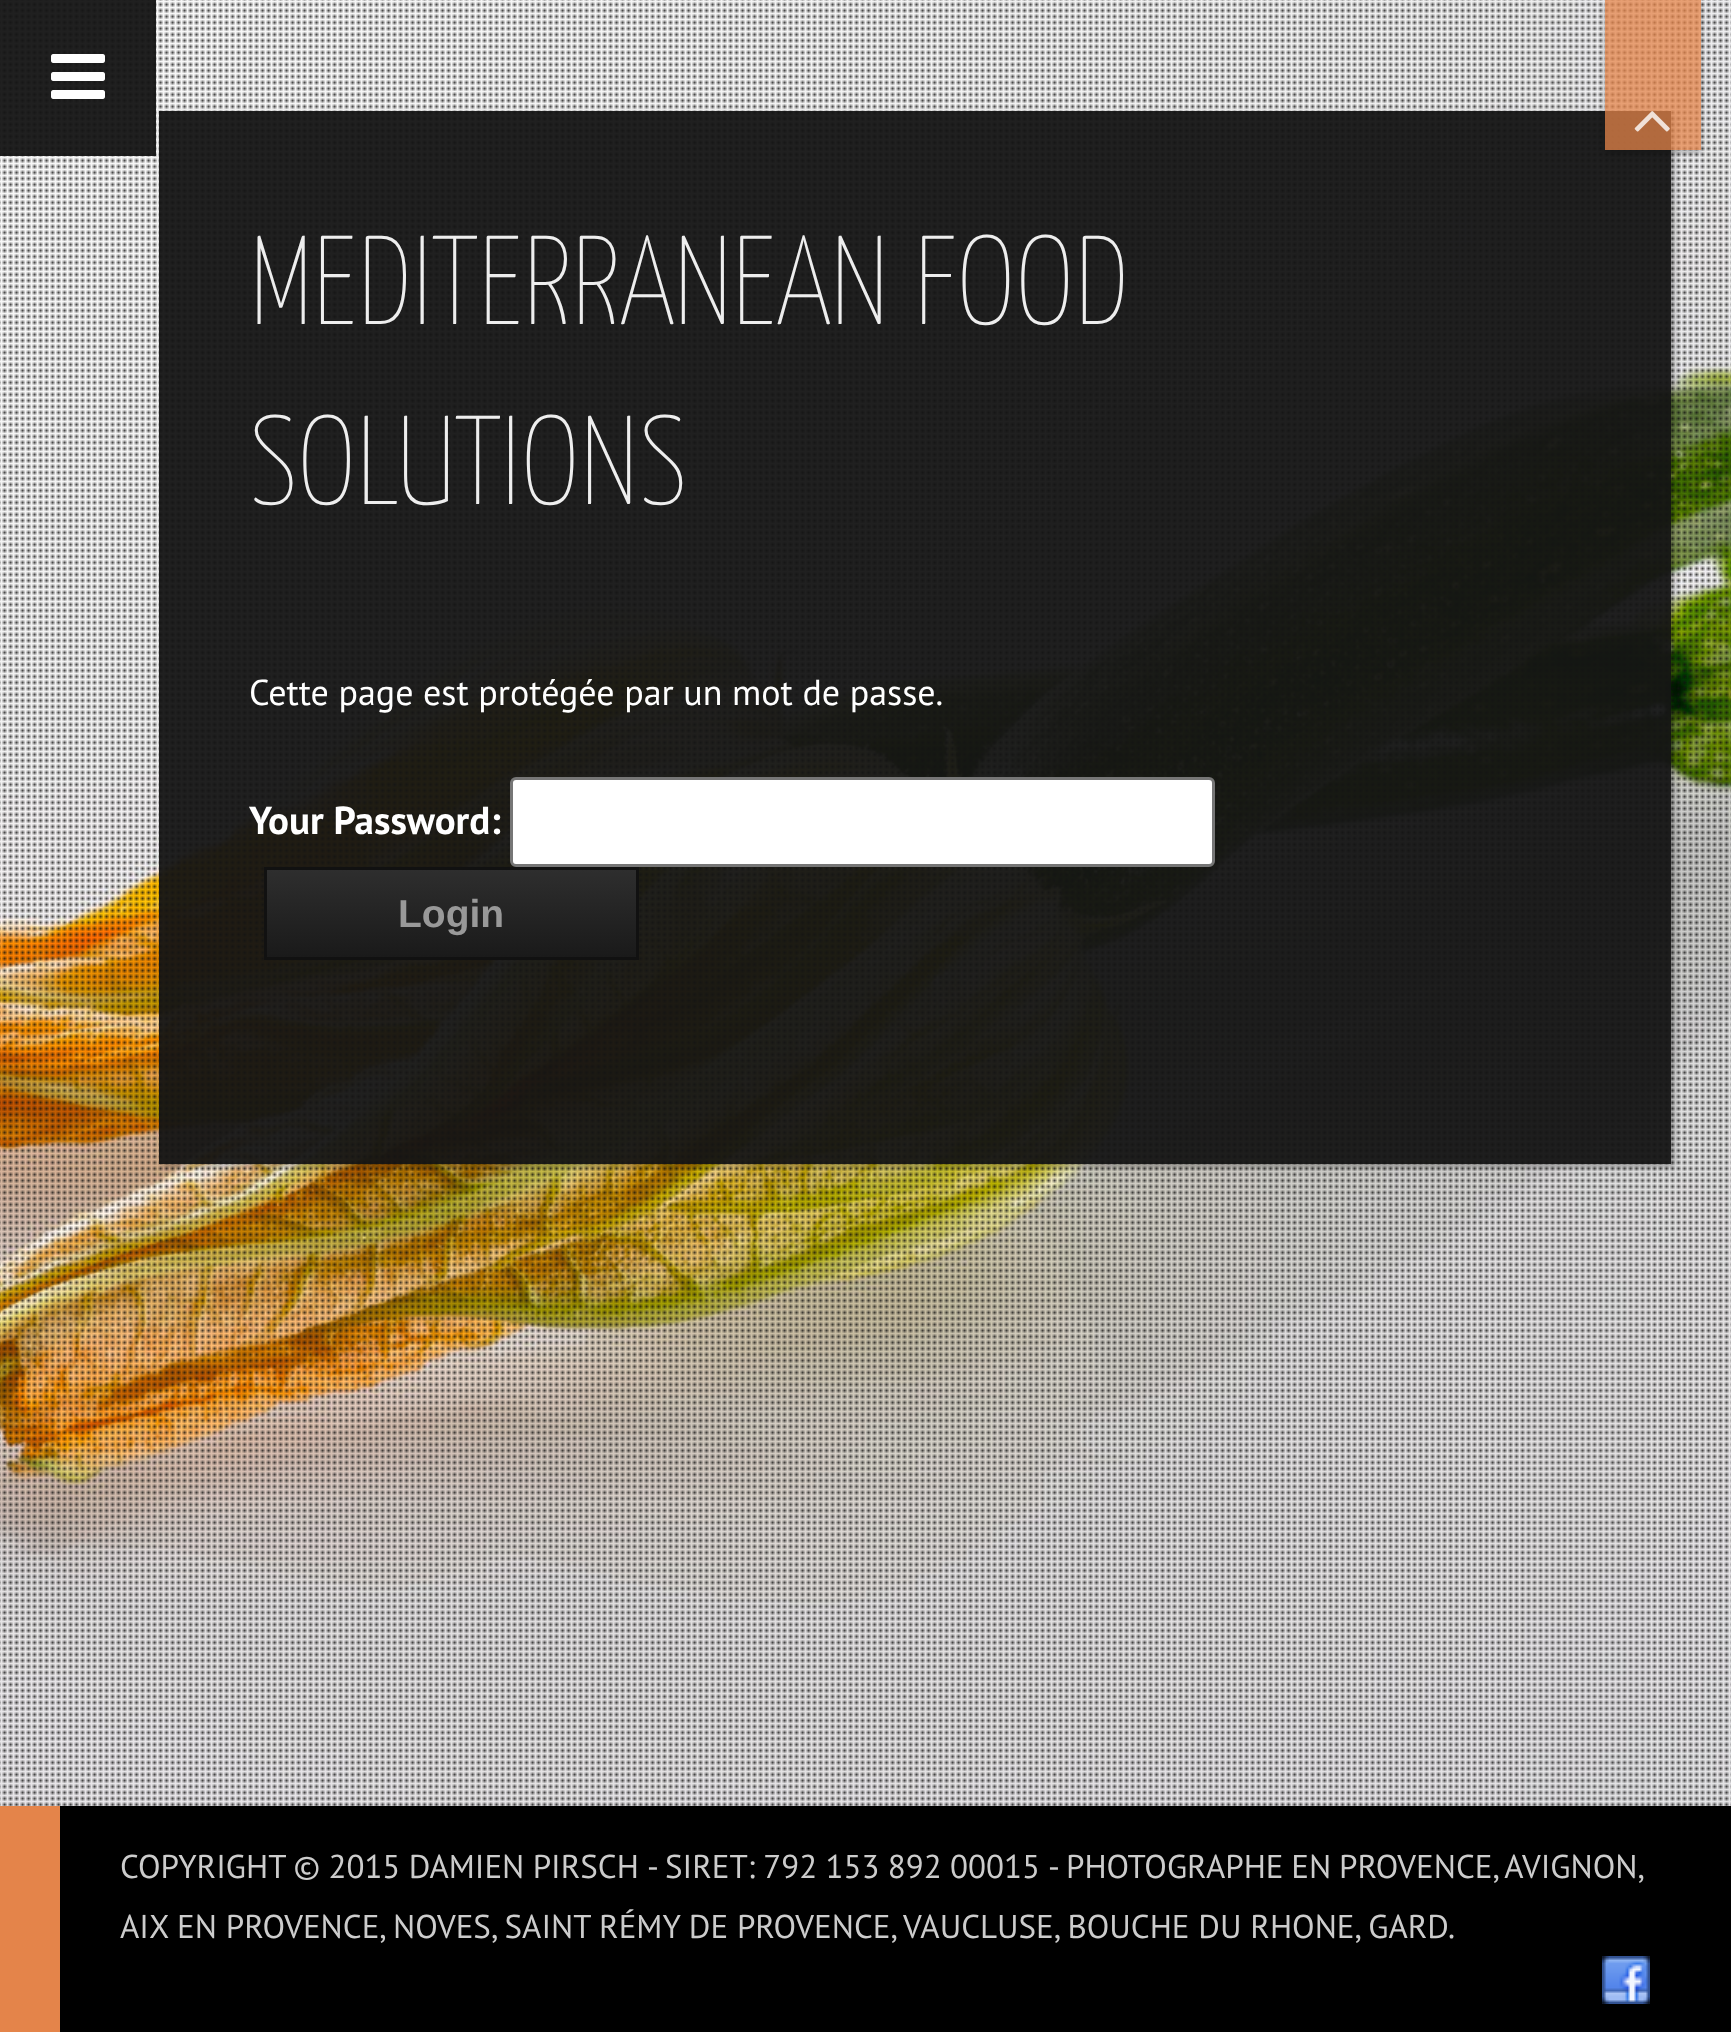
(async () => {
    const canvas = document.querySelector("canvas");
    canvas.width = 1731;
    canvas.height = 2032;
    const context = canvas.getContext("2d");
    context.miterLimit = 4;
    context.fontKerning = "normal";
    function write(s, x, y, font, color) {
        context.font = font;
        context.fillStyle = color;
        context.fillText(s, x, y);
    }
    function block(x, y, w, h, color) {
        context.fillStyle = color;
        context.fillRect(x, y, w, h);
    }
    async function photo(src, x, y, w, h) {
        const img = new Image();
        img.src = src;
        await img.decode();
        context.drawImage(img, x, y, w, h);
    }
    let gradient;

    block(0, 0, 1731, 2032, "rgb(255, 255, 255)");
    await photo("media/1.png", 0, 0, 1731, 1806);
    await photo("media/2.png", 0, 0, 1731, 1806);
    context.save();
    context.beginPath();
    context.moveTo(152, 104);
    context.lineTo(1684, 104);
    context.lineTo(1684, 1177);
    context.lineTo(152, 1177);
    context.closePath();
    context.moveTo(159, 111);
    context.lineTo(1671, 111);
    context.lineTo(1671, 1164);
    context.lineTo(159, 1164);
    context.closePath();
    context.clip("evenodd");
    context.fillStyle = "rgba(0, 0, 0, 0.3)";
    context.filter = "blur(3px)";
    context.beginPath();
    context.rect(162, 114, 1512, 1053);
    context.fill();
    context.filter = "none";
    context.restore();
    block(0, 0, 156, 156, "rgba(20, 20, 20, 0.95)");
    await photo("media/3.png", 51, 54, 54, 45);
    block(159, 111, 1512, 1053, "rgba(20, 20, 20, 0.95)");
    context.save();
    context.beginPath();
    context.moveTo(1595, 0);
    context.lineTo(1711, 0);
    context.lineTo(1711, 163);
    context.lineTo(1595, 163);
    context.closePath();
    context.moveTo(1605, 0);
    context.lineTo(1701, 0);
    context.lineTo(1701, 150);
    context.lineTo(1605, 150);
    context.closePath();
    context.clip("evenodd");
    context.fillStyle = "rgba(0, 0, 0, 0.25)";
    context.filter = "blur(3px)";
    context.beginPath();
    context.rect(1605, 3, 96, 150);
    context.fill();
    context.filter = "none";
    context.restore();
    block(1605, 0, 96, 150, "rgba(228, 132, 74, 0.75)");
    await photo("media/4.png", 1634, 111, 36, 21);
    write("MEDITERRANEAN FOOD", 249, 324, "200 126px Yanone Kaffeesatz", "rgb(238, 238, 238)");
    write("SOLUTIONS", 249, 504, "200 126px Yanone Kaffeesatz", "rgb(238, 238, 238)");
    write("Cette page est protégée par un mot de passe.", 249, 705, "36px PT Sans", "rgb(255, 255, 255)");
    write("Your Password:", 249, 834, "bold 39px PT Sans", "rgb(255, 255, 255)");
    context.beginPath();
    context.roundRect(511.5, 778.5, 702, 87, 4.5);
    context.fill();
    context.strokeStyle = "rgb(118, 118, 118)";
    context.lineWidth = 3;
    context.stroke();
    gradient = context.createLinearGradient(267, 870, 267, 957);
    gradient.addColorStop(0, "rgb(46, 46, 46)");
    gradient.addColorStop(1, "rgb(26, 26, 26)");
    context.fillStyle = gradient;
    context.fillRect(267, 870, 369, 87);
    context.strokeStyle = "rgb(17, 17, 17)";
    context.strokeRect(265.5, 868.5, 372, 90);
    write("Login", 398, 927, "bold 39px Liberation Sans", "rgb(153, 153, 153)");
    context.fillStyle = "rgba(0, 0, 0, 0.25)";
    context.filter = "blur(3px)";
    context.beginPath();
    context.rect(0, 1809, 1731, 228);
    context.fill();
    context.filter = "none";
    block(60, 1806, 1671, 226, "rgb(0, 0, 0)");
    block(0, 1806, 60, 226, "rgb(228, 132, 74)");
    context.wordSpacing = "-0.5px";
    write("COPYRIGHT © 2015 DAMIEN PIRSCH", 120, 1878, "33px PT Sans", "rgb(204, 204, 204)");
    context.wordSpacing = "0px";
    write("-", 647, 1878, "33px PT Sans", "rgb(204, 204, 204)");
    context.wordSpacing = "-0.5px";
    write("SIRET: 792 153 892 00015", 665, 1878, "33px PT Sans", "rgb(204, 204, 204)");
    context.wordSpacing = "0px";
    write("-", 1048, 1878, "33px PT Sans", "rgb(204, 204, 204)");
    context.wordSpacing = "-1px";
    write("PHOTOGRAPHE EN PROVENCE, AVIGNON,", 1066, 1878, "33px PT Sans", "rgb(204, 204, 204)");
    context.wordSpacing = "0px";
    write("AIX EN PROVENCE, NOVES, SAINT RÉMY DE PROVENCE, VAUCLUSE, BOUCHE DU RHONE, GARD.", 120, 1938, "33px PT Sans", "rgb(204, 204, 204)");
    await photo("media/5.png", 1602, 1956, 48, 48);
})();
